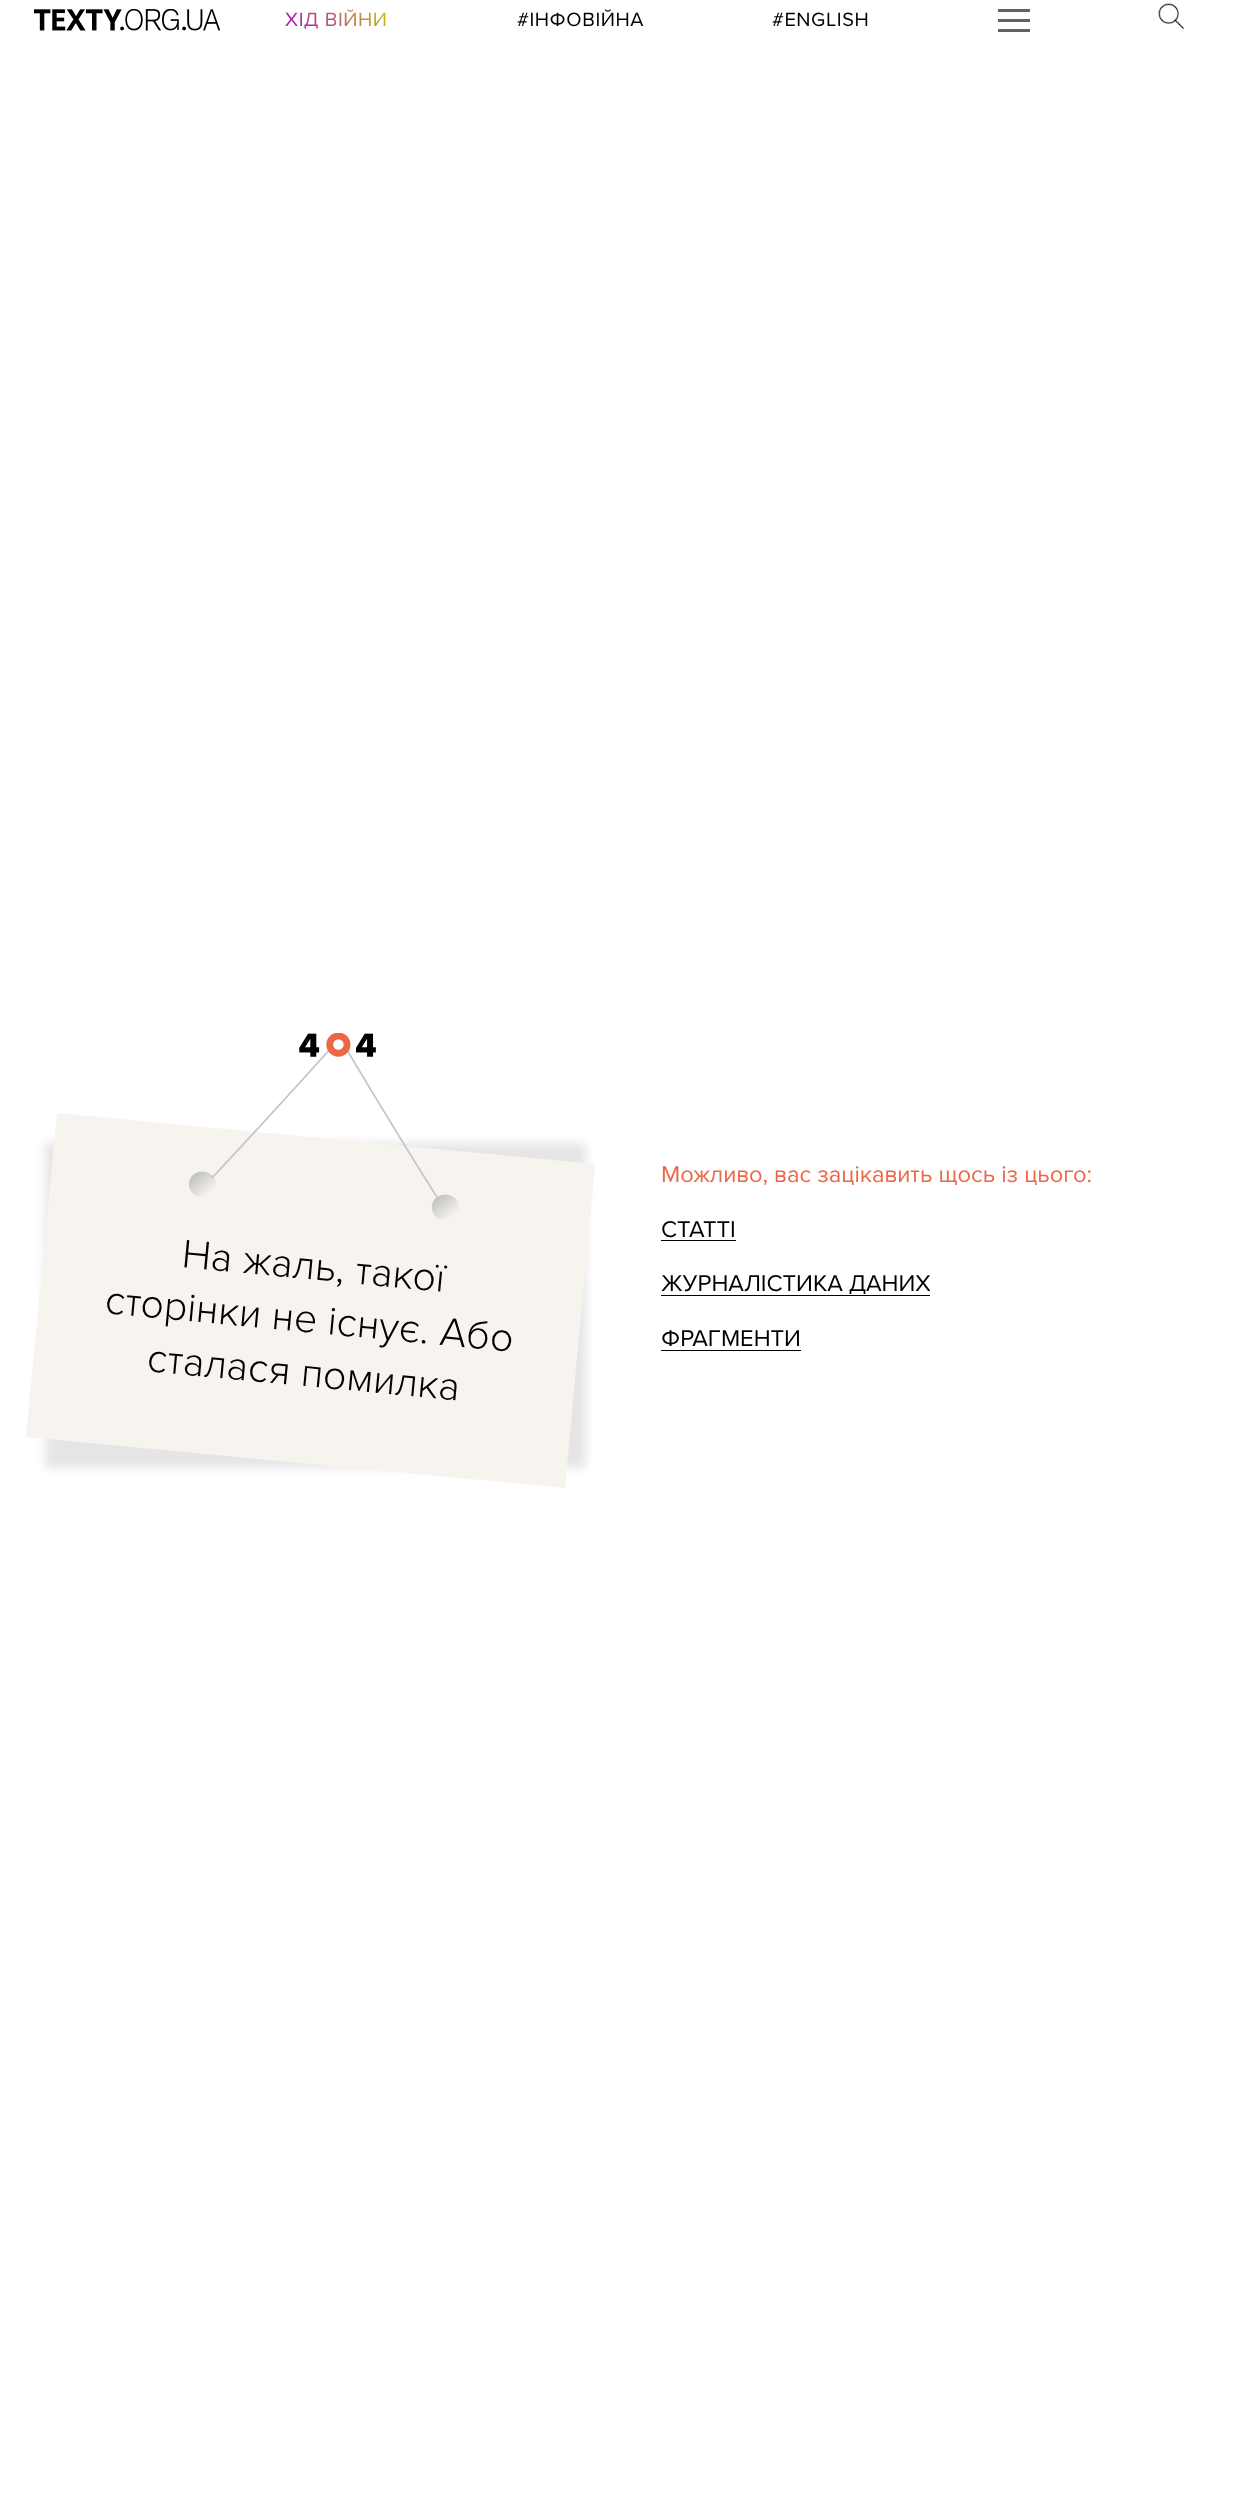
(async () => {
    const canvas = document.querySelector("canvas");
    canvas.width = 1242;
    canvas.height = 2499;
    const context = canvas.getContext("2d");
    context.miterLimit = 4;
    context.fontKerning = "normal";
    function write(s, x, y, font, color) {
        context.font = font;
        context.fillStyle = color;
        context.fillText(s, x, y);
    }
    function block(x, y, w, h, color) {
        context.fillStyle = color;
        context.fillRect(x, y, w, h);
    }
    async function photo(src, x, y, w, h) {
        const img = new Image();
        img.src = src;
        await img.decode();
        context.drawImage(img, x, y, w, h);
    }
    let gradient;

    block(0, 0, 1242, 2499, "rgb(255, 255, 255)");
    await photo("media/1.png", 34, 9, 186, 22);
    context.letterSpacing = "0.6px";
    context.font = "20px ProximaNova";
    gradient = context.createLinearGradient(305, 51, 369, -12);
    gradient.addColorStop(0, "rgb(168, 0, 204)");
    gradient.addColorStop(1, "rgb(204, 203, 0)");
    context.fillStyle = gradient;
    context.fillText("ХІД ВІЙНИ", 285, 26);
    write("#ІНФОВІЙНА", 517, 26, "20px ProximaNova", "rgb(0, 0, 0)");
    write("#ENGLISH", 772, 26, "20px ProximaNova", "rgb(0, 0, 0)");
    block(998, 19, 32, 3, "rgb(97, 97, 97)");
    block(998, 9, 32, 3, "rgb(97, 97, 97)");
    block(998, 29, 32, 3, "rgb(97, 97, 97)");
    await photo("media/2.png", 1158, 3, 26, 26);
    context.fillStyle = "rgba(0, 0, 0, 0.1)";
    context.filter = "blur(5px)";
    context.beginPath();
    context.rect(45, 1143, 541, 325);
    context.fill();
    context.filter = "none";
    context.fillStyle = "rgb(247, 244, 239)";
    context.beginPath();
    context.moveTo(57, 1113);
    context.lineTo(595, 1164);
    context.lineTo(565, 1488);
    context.lineTo(26, 1437);
    context.closePath();
    context.fill();
    await photo("media/3.png", 189, 1033, 270, 187);
    context.letterSpacing = "0px";
    context.font = "300 41.25px Proxima Nova";
    context.fillStyle = "rgb(0, 0, 0)";
    context.save();
    context.translate(181, 1267);
    context.rotate(5.4 * Math.PI / 180);
    context.fillText("На жаль, такої", 0, 0);
    context.restore();
    context.save();
    context.translate(104, 1313);
    context.rotate(5.4 * Math.PI / 180);
    context.fillText("сторінки не існує. Або", 0, 0);
    context.restore();
    context.save();
    context.translate(146, 1371);
    context.rotate(5.4 * Math.PI / 180);
    context.fillText("сталася помилка", 0, 0);
    context.restore();
    write("Можливо, вас зацікавить щось із цього:", 661, 1182, "23.75px ProximaNova", "rgb(237, 103, 70)");
    write("СТАТТІ", 661, 1237, "23.75px ProximaNova", "rgb(0, 0, 0)");
    block(661, 1240, 75, 1, "rgb(0, 0, 0)");
    write("ЖУРНАЛІСТИКА ДАНИХ", 661, 1291, "23.75px ProximaNova", "rgb(0, 0, 0)");
    block(661, 1295, 269, 1, "rgb(0, 0, 0)");
    write("ФРАГМЕНТИ", 661, 1346, "23.75px ProximaNova", "rgb(0, 0, 0)");
    block(661, 1350, 140, 1, "rgb(0, 0, 0)");
})();
